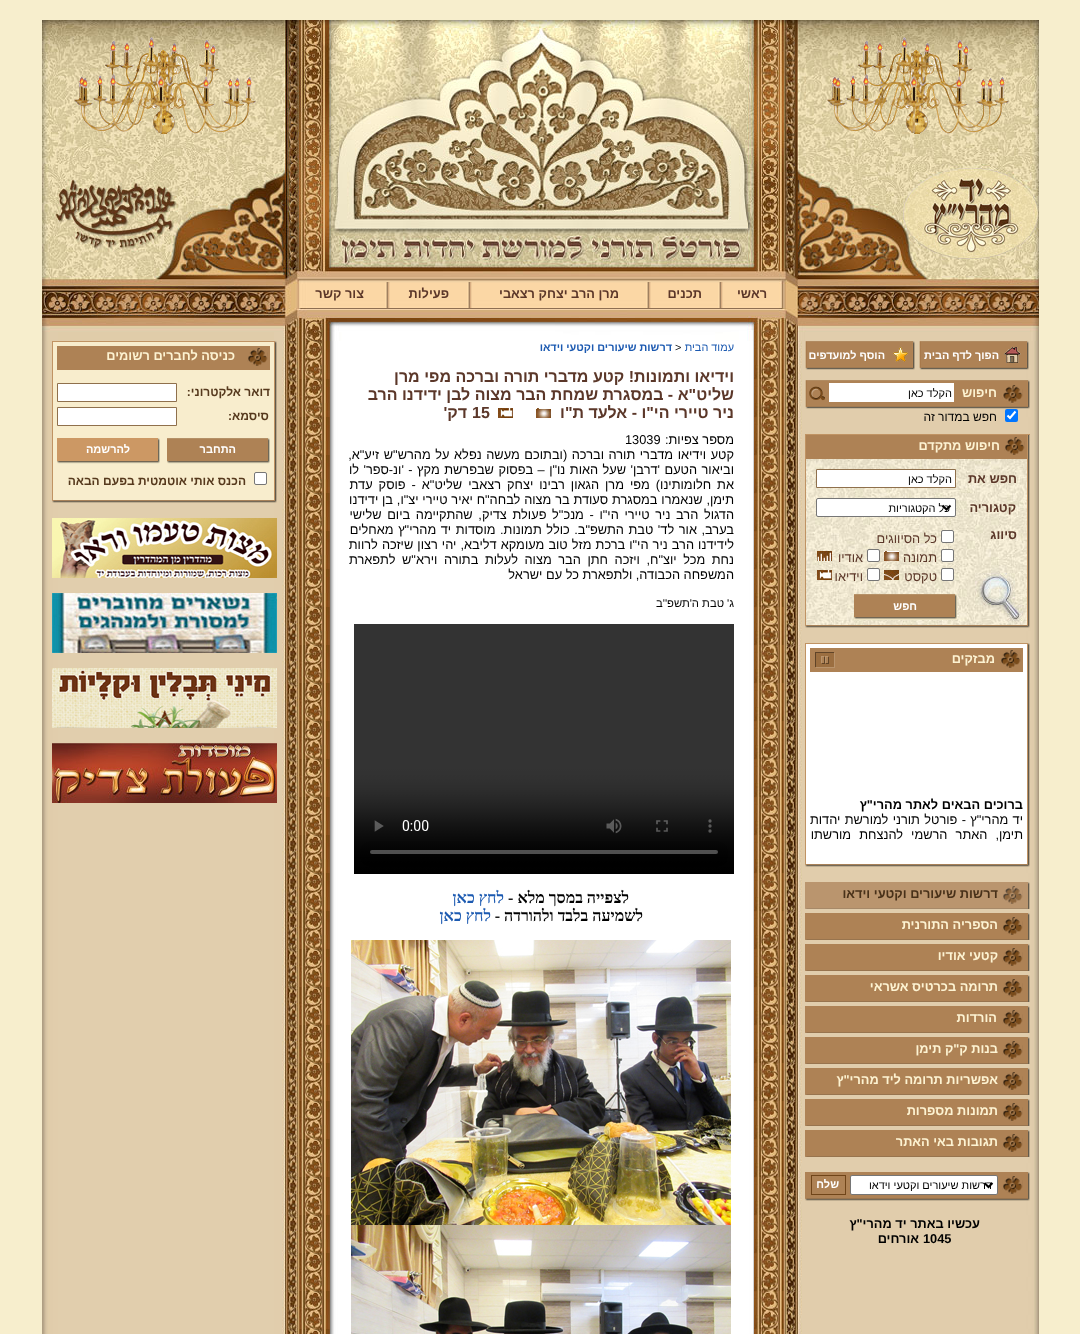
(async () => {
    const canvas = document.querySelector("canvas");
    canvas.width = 1080;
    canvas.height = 1334;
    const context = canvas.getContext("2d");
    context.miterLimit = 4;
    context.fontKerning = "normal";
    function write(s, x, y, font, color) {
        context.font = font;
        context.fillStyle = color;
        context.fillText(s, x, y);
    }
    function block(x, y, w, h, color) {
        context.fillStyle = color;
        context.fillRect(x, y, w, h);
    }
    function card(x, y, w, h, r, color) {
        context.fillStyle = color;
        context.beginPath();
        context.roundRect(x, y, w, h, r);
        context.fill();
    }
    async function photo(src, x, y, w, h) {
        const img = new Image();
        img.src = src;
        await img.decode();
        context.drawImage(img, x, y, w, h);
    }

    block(0, 0, 1080, 1334, "rgb(247, 238, 205)");
    await photo("media/1.png", 798, 20, 241, 321);
    await photo("media/2.png", 827, 37, 182, 97);
    await photo("media/3.png", 283, 20, 515, 321);
    await photo("media/4.png", 718, 282, 5, 26);
    context.direction = "rtl";
    write("ראשי", 767, 298, "bold 12.8px Liberation Sans", "rgb(91, 55, 41)");
    await photo("media/4.png", 646, 282, 5, 26);
    write("תכנים", 702, 298, "bold 12.8px Liberation Sans", "rgb(91, 55, 41)");
    await photo("media/4.png", 467, 282, 5, 26);
    write("מרן הרב יצחק רצאבי", 619, 298, "bold 12.8px Liberation Sans", "rgb(91, 55, 41)");
    await photo("media/4.png", 385, 282, 5, 26);
    write("פעילות", 449, 298, "bold 12.8px Liberation Sans", "rgb(91, 55, 41)");
    write("צור קשר", 364, 298, "bold 12.8px Liberation Sans", "rgb(91, 55, 41)");
    await photo("media/5.png", 42, 20, 241, 321);
    await photo("media/6.png", 74, 37, 182, 97);
    await photo("media/7.png", 42, 341, 997, 993);
    await photo("media/8.png", 919, 341, 110, 29);
    write("הפוך לדף הבית", 999, 359, "bold 10.9px Liberation Sans", "rgb(255, 255, 255)");
    await photo("media/9.png", 805, 341, 110, 29);
    write("הוסף למועדפים", 885, 359, "bold 10.9px Liberation Sans", "rgb(255, 255, 255)");
    await photo("media/10.png", 805, 380, 225, 29);
    write("חיפוש", 997, 397, "bold 12.8px Liberation Sans", "rgb(253, 243, 210)");
    block(829, 383, 125, 19, "rgb(255, 255, 255)");
    write("הקלד כאן", 952, 397, "11px Liberation Sans", "rgb(0, 0, 0)");
    await photo("media/11.png", 809, 386, 16, 15);
    card(1005, 409, 13, 13, 2, "rgb(0, 117, 255)");
    context.beginPath();
    context.moveTo(1007.5, 415.5);
    context.lineTo(1010, 418);
    context.lineTo(1015.5, 411.5);
    context.strokeStyle = "rgb(255, 255, 255)";
    context.lineWidth = 2.1;
    context.stroke();
    write("חפש במדור זה", 997, 421, "12px Liberation Sans", "rgb(0, 0, 0)");
    await photo("media/12.png", 805, 435, 225, 193);
    block(805, 434, 225, 1, "rgb(192, 147, 99)");
    block(806, 435, 221, 24, "rgb(174, 130, 85)");
    await photo("media/13.png", 1004, 437, 21, 18);
    write("חיפוש מתקדם", 1000, 450, "bold 12.8px Liberation Sans", "rgb(253, 243, 210)");
    await photo("media/14.png", 806, 459, 221, 166);
    write("חפש את", 1017, 483, "bold 12.8px Liberation Sans", "rgb(91, 55, 41)");
    context.fillStyle = "rgb(255, 255, 255)";
    context.beginPath();
    context.rect(816.5, 469.5, 139, 18);
    context.fill();
    context.strokeStyle = "rgb(143, 112, 76)";
    context.lineWidth = 1;
    context.stroke();
    write("הקלד כאן", 952, 483, "11px Liberation Sans", "rgb(0, 0, 0)");
    write("קטגוריה", 1016, 512, "bold 12.8px Liberation Sans", "rgb(91, 55, 41)");
    context.fillStyle = "rgb(255, 255, 255)";
    context.beginPath();
    context.roundRect(816.5, 498.5, 139, 18, 1.5);
    context.fill();
    context.strokeStyle = "rgb(118, 118, 118)";
    context.stroke();
    context.beginPath();
    context.moveTo(942.5, 505.5);
    context.lineTo(946.5, 509.5);
    context.lineTo(950.5, 505.5);
    context.strokeStyle = "rgb(0, 0, 0)";
    context.lineWidth = 2;
    context.stroke();
    write("כל הקטגוריות", 950, 512, "11px Liberation Sans", "rgb(0, 0, 0)");
    write("סיווג", 1017, 539, "bold 12.8px Liberation Sans", "rgb(91, 55, 41)");
    context.fillStyle = "rgb(255, 255, 255)";
    context.beginPath();
    context.roundRect(941.5, 530.5, 12, 12, 1.5);
    context.fill();
    context.strokeStyle = "rgb(118, 118, 118)";
    context.lineWidth = 1;
    context.stroke();
    write("כל הסיווגים", 937, 543, "12.8px Liberation Sans", "rgb(91, 55, 41)");
    context.fillStyle = "rgb(255, 255, 255)";
    context.beginPath();
    context.roundRect(941.5, 549.5, 12, 12, 1.5);
    context.fill();
    context.stroke();
    write("תמונה", 937, 562, "12.8px Liberation Sans", "rgb(91, 55, 41)");
    await photo("media/15.png", 884, 551, 15, 10);
    context.fillStyle = "rgb(255, 255, 255)";
    context.beginPath();
    context.roundRect(867.5, 549.5, 12, 12, 1.5);
    context.fill();
    context.stroke();
    write("אודיו", 863, 562, "12.8px Liberation Sans", "rgb(91, 55, 41)");
    await photo("media/16.png", 817, 551, 15, 10);
    context.fillStyle = "rgb(255, 255, 255)";
    context.beginPath();
    context.roundRect(941.5, 568.5, 12, 12, 1.5);
    context.fill();
    context.stroke();
    write("טקסט", 937, 581, "12.8px Liberation Sans", "rgb(91, 55, 41)");
    await photo("media/17.png", 884, 570, 15, 10);
    context.fillStyle = "rgb(255, 255, 255)";
    context.beginPath();
    context.roundRect(867.5, 568.5, 12, 12, 1.5);
    context.fill();
    context.stroke();
    write("וידיאו", 863, 581, "12.8px Liberation Sans", "rgb(91, 55, 41)");
    await photo("media/18.png", 817, 570, 15, 10);
    await photo("media/19.png", 854, 594, 103, 26);
    write("חפש", 917, 610, "bold 11px Liberation Sans", "rgb(255, 255, 255)");
    block(806, 644, 221, 220, "rgb(255, 255, 255)");
    await photo("media/20.png", 805, 643, 225, 224);
    await photo("media/21.png", 806, 643, 224, 2);
    await photo("media/22.png", 810, 648, 213, 24);
    write("מבזקים", 995, 663, "bold 12.8px Liberation Sans", "rgb(253, 243, 210)");
    await photo("media/23.png", 815, 652, 20, 16);
    write("ברוכים הבאים לאתר מהרי\"ץ", 1023, 809, "bold 12.8px Liberation Sans", "rgb(0, 0, 0)");
    context.wordSpacing = "0.75px";
    write("יד מהרי\"ץ - פורטל תורני למורשת יהדות", 1023, 824, "12.8px Liberation Sans", "rgb(0, 0, 0)");
    context.wordSpacing = "4.5px";
    write("תימן, האתר הרשמי להנצחת מורשתו", 1023, 839, "12.8px Liberation Sans", "rgb(0, 0, 0)");
    await photo("media/24.png", 805, 882, 225, 27);
    context.wordSpacing = "0px";
    write("דרשות שיעורים וקטעי וידאו", 998, 898, "bold 12.8px Liberation Sans", "rgb(72, 49, 25)");
    await photo("media/25.png", 805, 913, 225, 27);
    write("הספריה התורנית", 998, 929, "bold 12.8px Liberation Sans", "rgb(253, 243, 210)");
    await photo("media/25.png", 805, 944, 225, 27);
    write("קטעי אודיו", 998, 960, "bold 12.8px Liberation Sans", "rgb(253, 243, 210)");
    await photo("media/25.png", 805, 975, 225, 27);
    write("תרומה בכרטיס אשראי", 998, 991, "bold 12.8px Liberation Sans", "rgb(253, 243, 210)");
    await photo("media/25.png", 805, 1006, 225, 27);
    write("הורדות", 997, 1022, "bold 12.8px Liberation Sans", "rgb(253, 243, 210)");
    await photo("media/25.png", 805, 1037, 225, 27);
    write("בנות ק\"ק תימן", 998, 1053, "bold 12.8px Liberation Sans", "rgb(253, 243, 210)");
    await photo("media/25.png", 805, 1068, 225, 27);
    write("אפשריות תרומה ליד מהרי\"ץ", 998, 1084, "bold 12.8px Liberation Sans", "rgb(253, 243, 210)");
    await photo("media/25.png", 805, 1099, 225, 27);
    write("תמונות מספרות", 998, 1115, "bold 12.8px Liberation Sans", "rgb(253, 243, 210)");
    await photo("media/25.png", 805, 1130, 225, 27);
    write("תגובות באי האתר", 998, 1146, "bold 12.8px Liberation Sans", "rgb(253, 243, 210)");
    await photo("media/26.png", 805, 1172, 225, 29);
    context.fillStyle = "rgb(255, 255, 255)";
    context.beginPath();
    context.roundRect(850.5, 1175.5, 147, 19, 1.5);
    context.fill();
    context.stroke();
    context.beginPath();
    context.moveTo(984.5, 1183);
    context.lineTo(988.5, 1187);
    context.lineTo(992.5, 1183);
    context.strokeStyle = "rgb(0, 0, 0)";
    context.lineWidth = 2;
    context.stroke();
    write("דרשות שיעורים וקטעי וידאו", 992, 1189, "11px Liberation Sans", "rgb(0, 0, 0)");
    context.strokeStyle = "rgb(112, 69, 25)";
    context.lineWidth = 1;
    context.strokeRect(811.5, 1175.5, 34, 19);
    write("שלח", 839, 1188, "bold 11px Liberation Sans", "rgb(255, 255, 255)");
    write("עכשיו באתר יד מהרי\"ץ", 980, 1228, "bold 12.8px Liberation Sans", "rgb(0, 0, 0)");
    context.direction = "ltr";
    write("1045", 923, 1243, "bold 12.8px Liberation Sans", "rgb(0, 0, 0)");
    context.direction = "rtl";
    write("אורחים", 919, 1243, "bold 12.8px Liberation Sans", "rgb(0, 0, 0)");
    write("עמוד הבית", 734, 351, "10.9px Liberation Sans", "rgb(28, 90, 177)");
    context.direction = "ltr";
    write(">", 675, 351, "10.9px Liberation Sans", "rgb(0, 0, 0)");
    context.direction = "rtl";
    write("דרשות שיעורים וקטעי וידאו", 672, 351, "bold 10.9px Liberation Sans", "rgb(28, 90, 177)");
    write("וידיאו ותמונות! קטע מדברי תורה וברכה מפי מרן", 734, 382, "bold 16px Liberation Sans", "rgb(91, 55, 41)");
    write("שליט\"א - במסגרת שמחת הבר מצוה לבן ידידנו הרב", 734, 400, "bold 16px Liberation Sans", "rgb(91, 55, 41)");
    write("ניר טיירי הי\"ו - אלעד ת\"ו", 734, 418, "bold 16px Liberation Sans", "rgb(91, 55, 41)");
    await photo("media/15.png", 536, 408, 15, 10);
    await photo("media/18.png", 498, 408, 15, 10);
    context.direction = "ltr";
    write("15", 472, 418, "bold 16px Liberation Sans", "rgb(91, 55, 41)");
    context.direction = "rtl";
    write("דק'", 467, 418, "bold 16px Liberation Sans", "rgb(91, 55, 41)");
    write("מספר צפיות:", 734, 444, "12.8px Liberation Sans", "rgb(0, 0, 0)");
    context.direction = "ltr";
    write("13039", 625, 444, "12.8px Liberation Sans", "rgb(0, 0, 0)");
    context.wordSpacing = "1px";
    context.direction = "rtl";
    write("קטע וידיאו מדברי תורה וברכה (ובתוכם מעשה נפלא על מהרש\"ש זיע\"א,", 734, 459, "12.8px Liberation Sans", "rgb(0, 0, 0)");
    context.wordSpacing = "0.9px";
    write("וביאור הטעם 'דרבן' שעל האות נו\"ן – בפסוק שבפרשת מקץ - 'ונ-ספר' לו", 734, 474, "12.8px Liberation Sans", "rgb(0, 0, 0)");
    context.wordSpacing = "2.4px";
    write("את חלומותינו) מפי מרן הגאון רבינו יצחק רצאבי שליט\"א - פוסק עדת", 734, 489, "12.8px Liberation Sans", "rgb(0, 0, 0)");
    context.wordSpacing = "0.25px";
    write("תימן, שנאמרו במסגרת סעודת בר מצוה לבחה\"ח יאיר טיירי יצ\"ו, בן ידידנו", 734, 504, "12.8px Liberation Sans", "rgb(0, 0, 0)");
    context.wordSpacing = "2.1px";
    write("הדגול הרב ניר טיירי הי\"ו - מנכ\"ל פעולת צדיק, שהתקיימה ביום שלישי", 734, 519, "12.8px Liberation Sans", "rgb(0, 0, 0)");
    context.wordSpacing = "1px";
    write("בערב, אור לד' טבת התשפ\"ב. כולל תמונות. מוסדות יד מהרי\"ץ מאחלים", 734, 534, "12.8px Liberation Sans", "rgb(0, 0, 0)");
    context.wordSpacing = "0.5px";
    write("לידידנו הרב ניר הי\"ו ברכת מזל טוב מעומקא דליבא, יהי רצון שיזכה לרוות", 734, 549, "12.8px Liberation Sans", "rgb(0, 0, 0)");
    context.wordSpacing = "3px";
    write("נחת מכל יוצ\"ח, ויזכה חתן הבר מצוה לעלות בתורה וירא\"ש לתפארת", 734, 564, "12.8px Liberation Sans", "rgb(0, 0, 0)");
    context.wordSpacing = "0px";
    write("המשפחה הכבודה, ולתפארת כל עם ישראל", 734, 579, "12.8px Liberation Sans", "rgb(0, 0, 0)");
    write("ג' טבת ה'תשפ''ב", 734, 607, "11.25px Liberation Sans", "rgb(0, 0, 0)");
    await photo("media/27.png", 354, 624, 380, 250);
    write("לצפייה במסך מלא -", 629, 903, "bold 16px Liberation Serif", "rgb(0, 0, 0)");
    write("לחץ כאן", 504, 903, "bold 16px Liberation Serif", "rgb(28, 90, 177)");
    write("לשמיעה בלבד ולהורדה -", 643, 921, "bold 16px Liberation Serif", "rgb(0, 0, 0)");
    write("לחץ כאן", 491, 921, "bold 16px Liberation Serif", "rgb(28, 90, 177)");
    await photo("media/28.png", 351, 940, 380, 285);
    await photo("media/29.png", 351, 1225, 380, 109);
    block(53, 342, 221, 158, "rgb(248, 237, 205)");
    await photo("media/30.png", 52, 341, 225, 162);
    await photo("media/31.png", 53, 341, 224, 2);
    await photo("media/22.png", 57, 346, 213, 24);
    write("כניסה לחברים רשומים", 235, 360, "bold 12.8px Liberation Sans", "rgb(253, 243, 210)");
    write("דואר אלקטרוני:", 270, 396, "bold 12px Liberation Sans", "rgb(86, 57, 29)");
    context.fillStyle = "rgb(255, 255, 255)";
    context.beginPath();
    context.rect(57.5, 383.5, 119, 18);
    context.fill();
    context.strokeStyle = "rgb(143, 112, 76)";
    context.stroke();
    write("סיסמא:", 269, 420, "bold 12px Liberation Sans", "rgb(86, 57, 29)");
    context.fillStyle = "rgb(255, 255, 255)";
    context.beginPath();
    context.rect(57.5, 407.5, 119, 18);
    context.fill();
    context.stroke();
    await photo("media/19.png", 167, 438, 103, 26);
    write("התחבר", 236, 453, "bold 11px Liberation Sans", "rgb(255, 255, 255)");
    await photo("media/32.png", 57, 438, 103, 26);
    write("להרשמה", 130, 453, "bold 11px Liberation Sans", "rgb(255, 255, 255)");
    context.beginPath();
    context.roundRect(254.5, 472.5, 12, 12, 1.5);
    context.fill();
    context.strokeStyle = "rgb(118, 118, 118)";
    context.stroke();
    write("הכנס אותי אוטמטית בפעם הבאה", 246, 485, "bold 12px Liberation Sans", "rgb(86, 57, 29)");
    await photo("media/33.png", 52, 518, 225, 60);
    await photo("media/34.png", 52, 593, 225, 60);
    await photo("media/35.png", 52, 668, 225, 60);
    await photo("media/36.png", 52, 743, 225, 60);
})();
